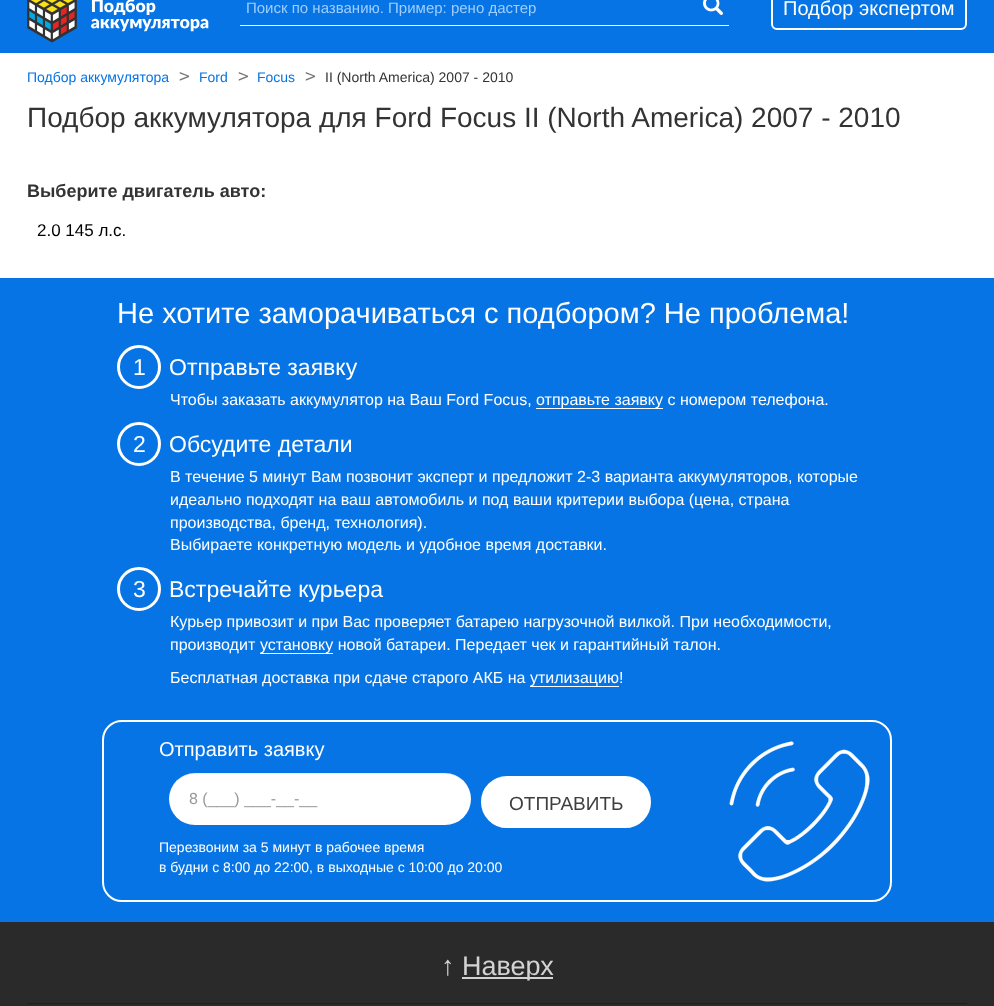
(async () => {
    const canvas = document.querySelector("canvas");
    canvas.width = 994;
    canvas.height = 1006;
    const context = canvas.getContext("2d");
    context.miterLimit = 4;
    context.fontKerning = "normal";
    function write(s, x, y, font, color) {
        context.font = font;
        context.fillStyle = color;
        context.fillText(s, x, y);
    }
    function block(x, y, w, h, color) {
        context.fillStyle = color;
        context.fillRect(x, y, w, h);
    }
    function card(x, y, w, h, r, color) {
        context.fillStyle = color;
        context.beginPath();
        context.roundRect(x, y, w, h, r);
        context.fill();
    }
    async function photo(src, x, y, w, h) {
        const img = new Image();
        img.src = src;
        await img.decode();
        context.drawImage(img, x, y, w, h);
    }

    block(0, 0, 994, 1006, "rgb(255, 255, 255)");
    block(0, 0, 994, 53, "rgb(6, 116, 228)");
    await photo("media/1.png", 27, 0, 50, 43);
    await photo("media/2.png", 91, 0, 118, 32);
    block(240, 25, 489, 1, "rgb(255, 255, 255)");
    context.save();
    context.beginPath();
    context.rect(246, 0, 449, 16);
    context.clip();
    write("Поиск по названию. Пример: рено дастер", 246, 13, "15px Liberation Sans", "rgb(158, 206, 255)");
    context.restore();
    await photo("media/3.png", 703, 0, 20, 15);
    context.beginPath();
    context.roundRect(772, -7, 194, 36, 5);
    context.strokeStyle = "rgb(255, 255, 255)";
    context.lineWidth = 2;
    context.stroke();
    write("Подбор экспертом", 783, 15, "20px Liberation Sans", "rgb(255, 255, 255)");
    write("Подбор аккумулятора", 27, 82, "14px Liberation Sans", "rgb(6, 116, 228)");
    write(">", 179, 82, "18px DejaVu Sans Mono", "rgb(119, 119, 119)");
    write("Ford", 199, 82, "14px Liberation Sans", "rgb(6, 116, 228)");
    write(">", 238, 82, "18px DejaVu Sans Mono", "rgb(119, 119, 119)");
    write("Focus", 257, 82, "14px Liberation Sans", "rgb(6, 116, 228)");
    write(">", 305, 82, "18px DejaVu Sans Mono", "rgb(119, 119, 119)");
    write("II (North America) 2007 - 2010", 325, 82, "14px Liberation Sans", "rgb(51, 51, 51)");
    write("Подбор аккумулятора для Ford Focus II (North America) 2007 - 2010", 27, 127, "28px Liberation Sans", "rgb(51, 51, 51)");
    write("Выберите двигатель авто:", 27, 197, "bold 18px Liberation Sans", "rgb(51, 51, 51)");
    write("2.0 145 л.c.", 37, 236, "17px Liberation Sans", "rgb(0, 0, 0)");
    block(0, 278, 994, 644, "rgb(6, 116, 228)");
    write("Не хотите заморачиваться с подбором? Не проблема!", 117, 323, "29px Liberation Sans", "rgb(255, 255, 255)");
    context.beginPath();
    context.arc(139, 367, 20.5, 0, Math.PI * 2);
    context.lineWidth = 3;
    context.stroke();
    write("1", 133, 375, "23px Liberation Sans", "rgb(255, 255, 255)");
    write("Отправьте заявку", 169, 375, "23px Liberation Sans", "rgb(255, 255, 255)");
    write("Чтобы заказать аккумулятор на Ваш Ford Focus,", 170, 405, "16px Liberation Sans", "rgb(255, 255, 255)");
    block(536, 408, 127, 1, "rgb(255, 255, 255)");
    write("отправьте заявку с номером телефона.", 536, 405, "16px Liberation Sans", "rgb(255, 255, 255)");
    context.beginPath();
    context.arc(139, 444, 20.5, 0, Math.PI * 2);
    context.stroke();
    write("2", 133, 452, "23px Liberation Sans", "rgb(255, 255, 255)");
    write("Обсудите детали", 169, 452, "23px Liberation Sans", "rgb(255, 255, 255)");
    write("В течение 5 минут Вам позвонит эксперт и предложит 2-3 варианта аккумуляторов, которые", 170, 482, "16px Liberation Sans", "rgb(255, 255, 255)");
    write("идеально подходят на ваш автомобиль и под ваши критерии выбора (цена, страна", 170, 505, "16px Liberation Sans", "rgb(255, 255, 255)");
    write("производства, бренд, технология).", 170, 528, "16px Liberation Sans", "rgb(255, 255, 255)");
    write("Выбираете конкретную модель и удобное время доставки.", 170, 550, "16px Liberation Sans", "rgb(255, 255, 255)");
    context.beginPath();
    context.arc(139, 589, 20.5, 0, Math.PI * 2);
    context.stroke();
    write("3", 133, 597, "23px Liberation Sans", "rgb(255, 255, 255)");
    write("Встречайте курьера", 169, 597, "23px Liberation Sans", "rgb(255, 255, 255)");
    write("Курьер привозит и при Вас проверяет батарею нагрузочной вилкой. При необходимости,", 170, 627, "16px Liberation Sans", "rgb(255, 255, 255)");
    write("производит", 170, 650, "16px Liberation Sans", "rgb(255, 255, 255)");
    block(260, 653, 73, 1, "rgb(255, 255, 255)");
    write("установку новой батареи. Передает чек и гарантийный талон.", 260, 650, "16px Liberation Sans", "rgb(255, 255, 255)");
    write("Бесплатная доставка при сдаче старого АКБ на", 170, 683, "16px Liberation Sans", "rgb(255, 255, 255)");
    block(530, 686, 89, 1, "rgb(255, 255, 255)");
    write("утилизацию!", 530, 683, "16px Liberation Sans", "rgb(255, 255, 255)");
    context.beginPath();
    context.roundRect(103, 721, 788, 180, 19);
    context.lineWidth = 2;
    context.stroke();
    write("Отправить заявку", 159, 756, "20px Liberation Sans", "rgb(255, 255, 255)");
    await photo("media/4.png", 729, 741, 141, 141);
    card(169, 773, 302, 52, 26, "rgb(255, 255, 255)");
    context.fillStyle = "rgba(0, 0, 0, 0.07)";
    context.beginPath();
    context.moveTo(195, 774);
    context.lineTo(445, 774);
    context.bezierCurveTo(459, 774, 471, 786, 471, 800);
    context.lineTo(471, 799);
    context.bezierCurveTo(471, 785, 459, 773, 445, 773);
    context.lineTo(195, 773);
    context.bezierCurveTo(181, 773, 169, 785, 169, 799);
    context.lineTo(169, 800);
    context.bezierCurveTo(169, 786, 181, 774, 195, 774);
    context.closePath();
    context.fill();
    write("8 (___) ___-__-__", 189, 804, "16px Liberation Sans", "rgb(153, 153, 153)");
    context.fillStyle = "rgb(255, 255, 255)";
    context.beginPath();
    context.roundRect(482, 777, 168, 50, 25);
    context.fill();
    context.stroke();
    write("ОТПРАВИТЬ", 509, 810, "19px Liberation Sans", "rgb(62, 62, 62)");
    write("Перезвоним за 5 минут в рабочее время", 159, 852, "14px Liberation Sans", "rgb(255, 255, 255)");
    write("в будни с 8:00 до 22:00, в выходные с 10:00 до 20:00", 159, 872, "14px Liberation Sans", "rgb(255, 255, 255)");
    block(0, 922, 994, 84, "rgb(43, 42, 42)");
    block(27, 1003, 940, 1, "rgb(31, 31, 31)");
    write("↑", 441, 975, "27px Liberation Sans", "rgb(211, 211, 211)");
    block(462, 977, 91, 2, "rgb(211, 211, 211)");
    write("Наверх", 462, 975, "27px Liberation Sans", "rgb(211, 211, 211)");
})();
